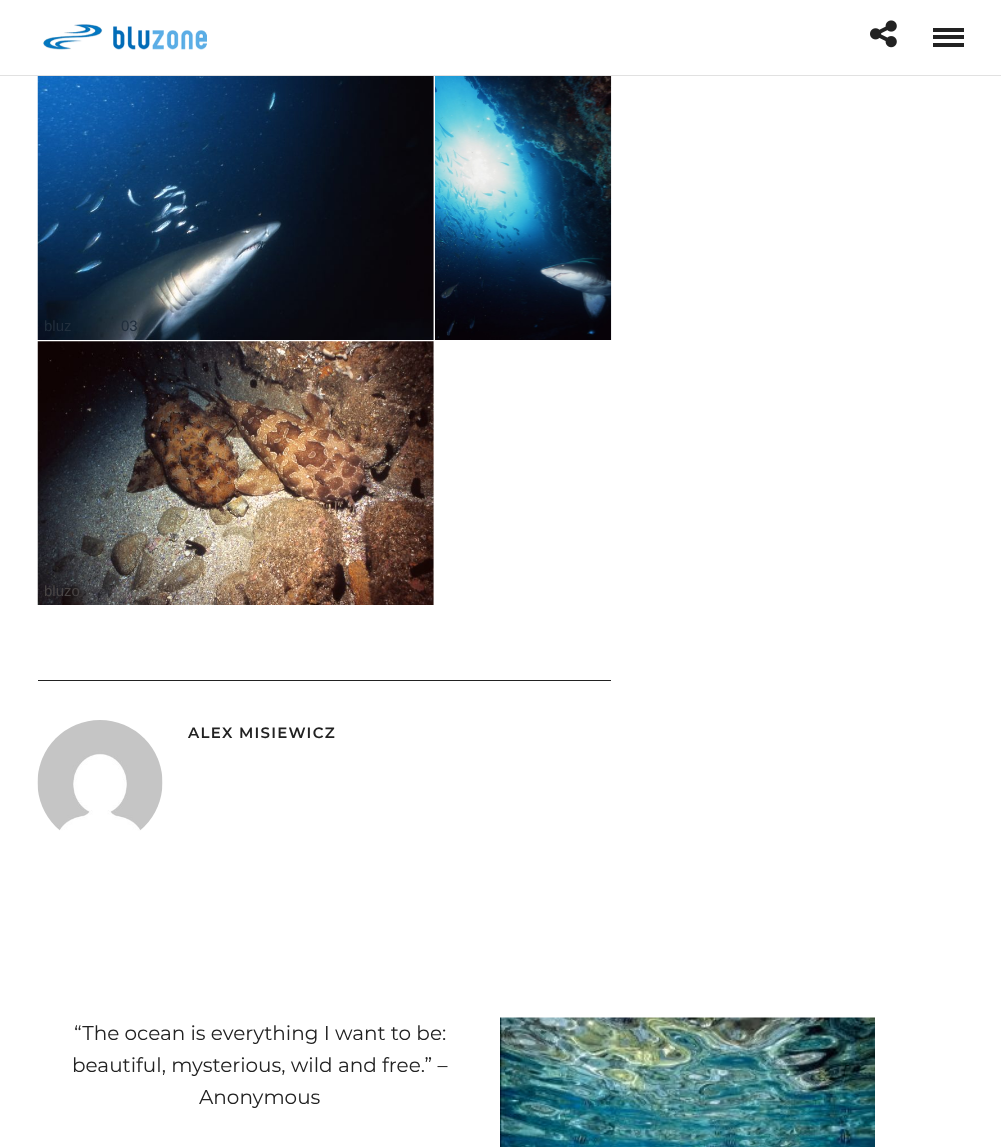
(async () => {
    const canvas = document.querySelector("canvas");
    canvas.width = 1001;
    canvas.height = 1147;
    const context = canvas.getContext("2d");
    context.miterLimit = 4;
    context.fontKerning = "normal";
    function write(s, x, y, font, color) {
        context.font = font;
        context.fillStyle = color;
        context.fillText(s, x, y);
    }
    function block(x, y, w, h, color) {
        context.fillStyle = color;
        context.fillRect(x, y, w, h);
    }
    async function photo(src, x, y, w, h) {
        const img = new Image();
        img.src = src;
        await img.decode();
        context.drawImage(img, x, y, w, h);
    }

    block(0, 0, 1001, 1147, "rgb(255, 255, 255)");
    block(0, 75, 1001, 1, "rgb(225, 225, 225)");
    await photo("media/1.png", 43, 24, 164, 26);
    await photo("media/2.png", 870, 20, 27, 28);
    block(933, 28, 31, 4, "rgb(34, 34, 34)");
    block(933, 35, 31, 4, "rgb(34, 34, 34)");
    block(933, 43, 31, 4, "rgb(34, 34, 34)");
    await photo("media/3.png", 37, 76, 397, 264);
    write("bluz", 44, 331, "15px Liberation Sans", "rgb(33, 46, 60)");
    write("03", 121, 331, "15px Liberation Sans", "rgb(33, 46, 60)");
    await photo("media/4.png", 435, 76, 177, 264);
    await photo("media/5.png", 37, 341, 397, 264);
    write("bluzo", 44, 596, "15px Liberation Sans", "rgb(73, 69, 69)");
    block(38, 680, 573, 1, "rgb(34, 34, 34)");
    await photo("media/6.png", 37, 720, 126, 111);
    context.letterSpacing = "1.25px";
    write("ALEX MISIEWICZ", 188, 738, "600 15px Montserrat", "rgb(34, 34, 34)");
    context.letterSpacing = "0px";
    write("“The ocean is everything I want to be:", 74, 1040, "20px Montserrat", "rgb(34, 34, 34)");
    write("beautiful, mysterious, wild and free.” –", 72, 1072, "20px Montserrat", "rgb(34, 34, 34)");
    write("Anonymous", 199, 1104, "20px Montserrat", "rgb(34, 34, 34)");
    await photo("media/7.png", 500, 1017, 375, 130);
})();
